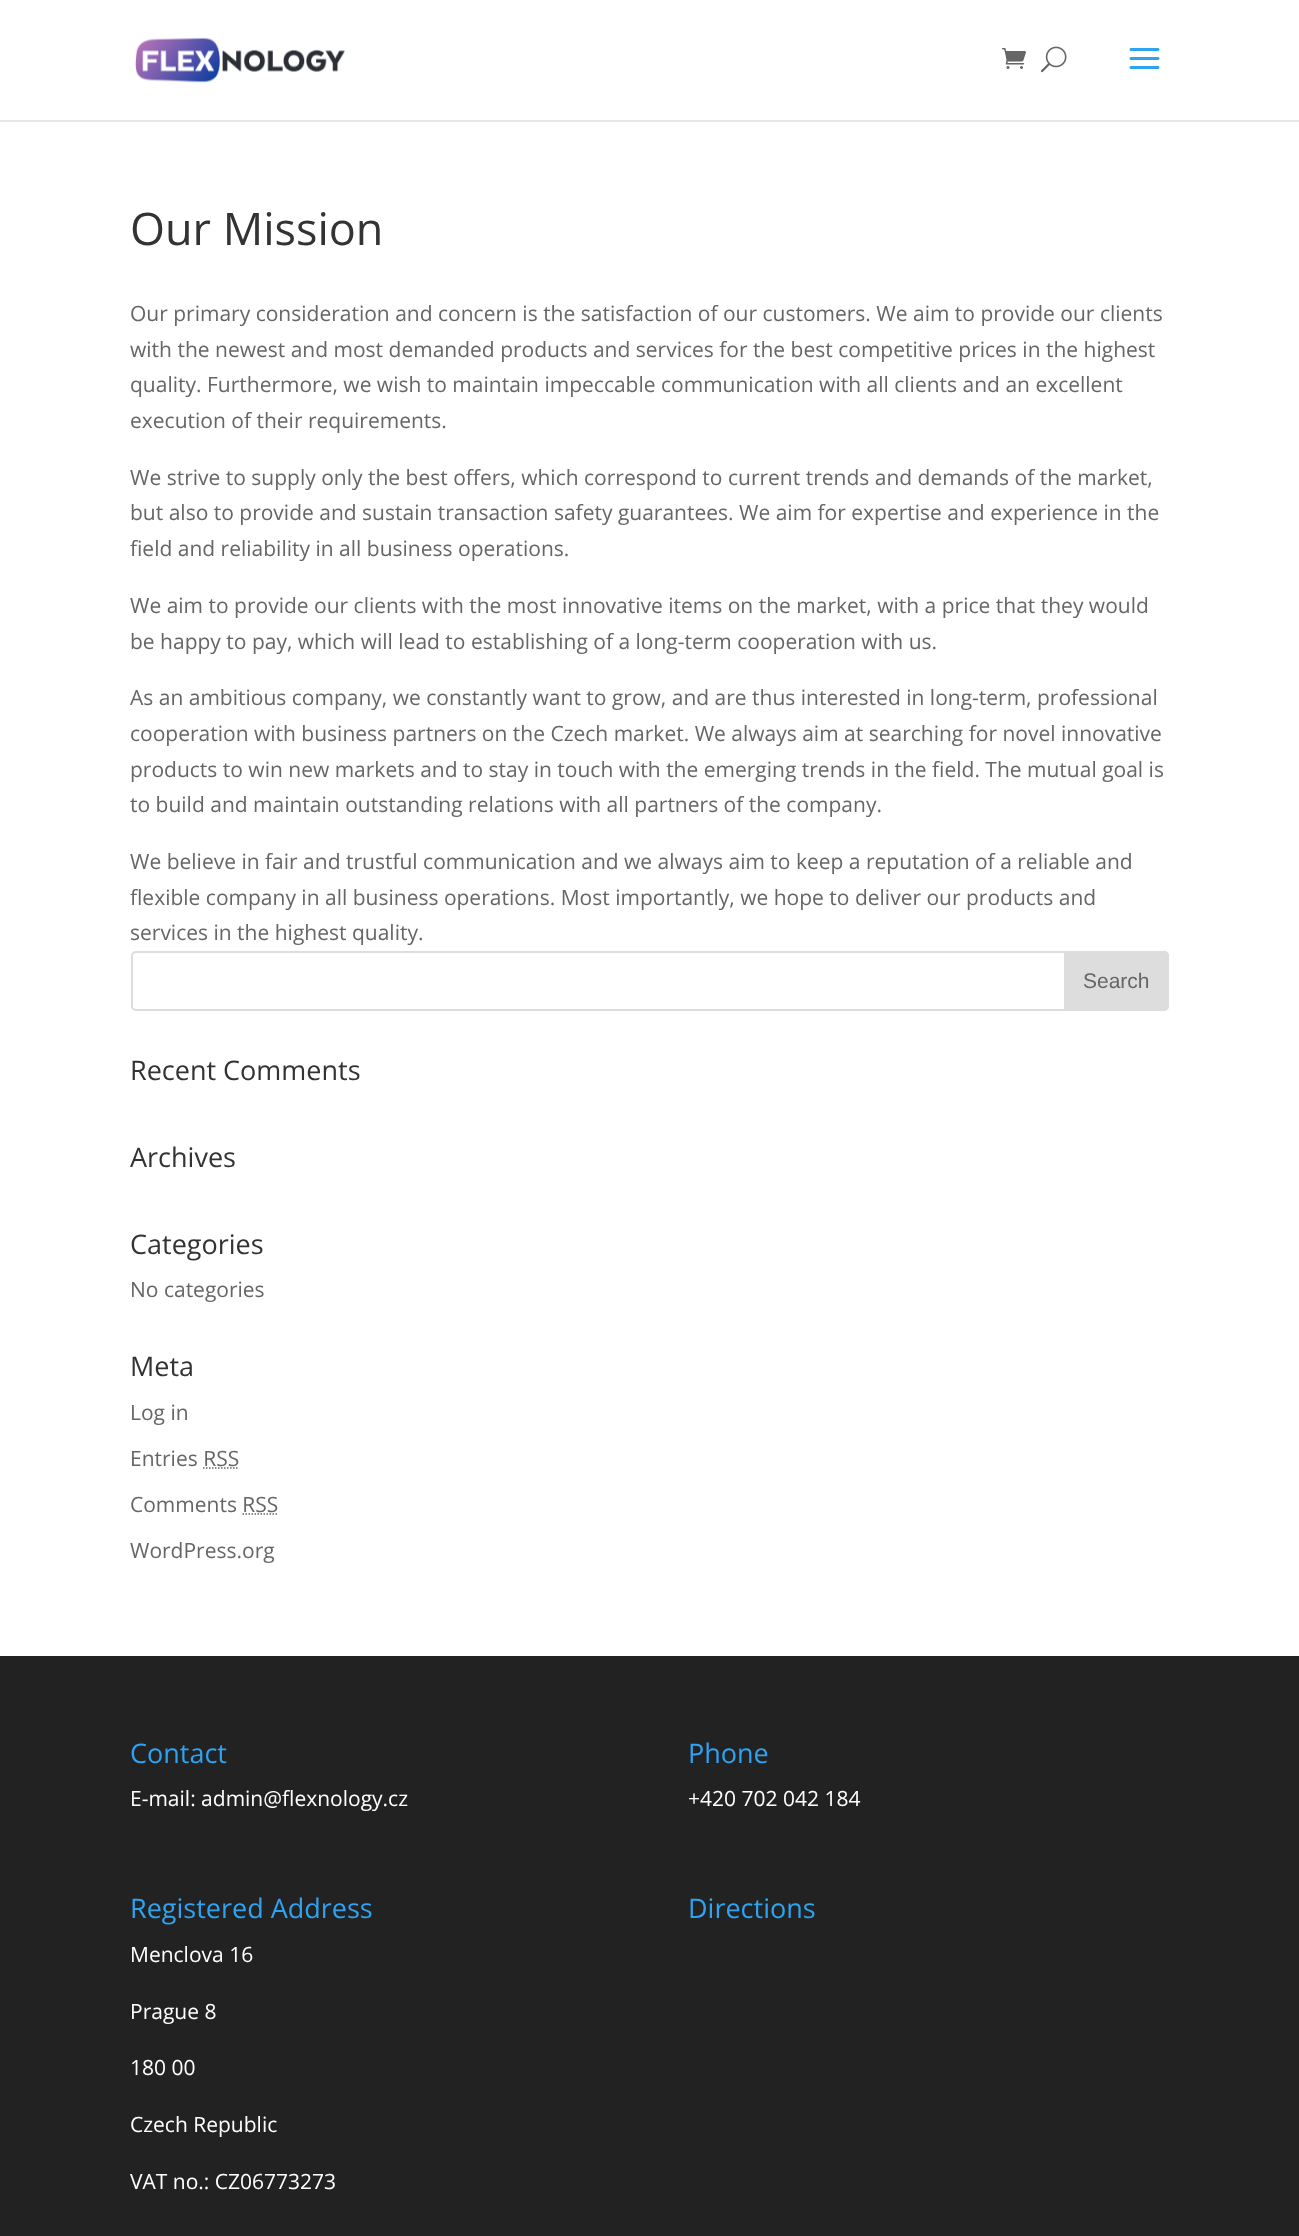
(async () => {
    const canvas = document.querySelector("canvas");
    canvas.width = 1299;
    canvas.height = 2236;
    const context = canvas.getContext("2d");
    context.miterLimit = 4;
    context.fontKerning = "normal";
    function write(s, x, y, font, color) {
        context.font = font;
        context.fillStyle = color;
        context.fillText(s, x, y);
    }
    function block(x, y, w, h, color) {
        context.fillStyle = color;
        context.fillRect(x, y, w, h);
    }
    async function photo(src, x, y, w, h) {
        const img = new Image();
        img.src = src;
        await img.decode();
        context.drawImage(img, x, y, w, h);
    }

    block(0, 0, 1299, 2236, "rgb(255, 255, 255)");
    block(0, 120, 1299, 2, "rgb(230, 230, 230)");
    await photo("media/1.png", 135, 37, 210, 46);
    await photo("media/2.png", 1002, 48, 24, 21);
    await photo("media/3.png", 1040, 46, 27, 27);
    await photo("media/4.png", 1129, 48, 31, 21);
    write("Our Mission", 130, 245, "45px Open Sans", "rgb(51, 51, 51)");
    write("Our primary consideration and concern is the satisfaction of our customers. We aim to provide our clients", 130, 321, "21px Open Sans", "rgb(102, 102, 102)");
    write("with the newest and most demanded products and services for the best competitive prices in the highest", 130, 357, "21px Open Sans", "rgb(102, 102, 102)");
    write("quality. Furthermore, we wish to maintain impeccable communication with all clients and an excellent", 130, 392, "21px Open Sans", "rgb(102, 102, 102)");
    write("execution of their requirements.", 130, 428, "21px Open Sans", "rgb(102, 102, 102)");
    write("We strive to supply only the best offers, which correspond to current trends and demands of the market,", 130, 485, "21px Open Sans", "rgb(102, 102, 102)");
    write("but also to provide and sustain transaction safety guarantees. We aim for expertise and experience in the", 130, 520, "21px Open Sans", "rgb(102, 102, 102)");
    write("field and reliability in all business operations.", 130, 556, "21px Open Sans", "rgb(102, 102, 102)");
    write("We aim to provide our clients with the most innovative items on the market, with a price that they would", 130, 613, "21px Open Sans", "rgb(102, 102, 102)");
    write("be happy to pay, which will lead to establishing of a long-term cooperation with us.", 130, 649, "21px Open Sans", "rgb(102, 102, 102)");
    write("As an ambitious company, we constantly want to grow, and are thus interested in long-term, professional", 130, 705, "21px Open Sans", "rgb(102, 102, 102)");
    write("cooperation with business partners on the Czech market. We always aim at searching for novel innovative", 130, 741, "21px Open Sans", "rgb(102, 102, 102)");
    write("products to win new markets and to stay in touch with the emerging trends in the field. The mutual goal is", 130, 777, "21px Open Sans", "rgb(102, 102, 102)");
    write("to build and maintain outstanding relations with all partners of the company.", 130, 812, "21px Open Sans", "rgb(102, 102, 102)");
    write("We believe in fair and trustful communication and we always aim to keep a reputation of a reliable and", 130, 869, "21px Open Sans", "rgb(102, 102, 102)");
    write("flexible company in all business operations. Most importantly, we hope to deliver our products and", 130, 905, "21px Open Sans", "rgb(102, 102, 102)");
    write("services in the highest quality.", 130, 940, "21px Open Sans", "rgb(102, 102, 102)");
    context.beginPath();
    context.roundRect(132, 952, 1036, 58, 4);
    context.strokeStyle = "rgb(221, 221, 221)";
    context.lineWidth = 2;
    context.stroke();
    context.fillStyle = "rgb(221, 221, 221)";
    context.beginPath();
    context.roundRect(1065, 952, 103, 58, [0, 4, 4, 0]);
    context.fill();
    context.stroke();
    write("Search", 1083, 988, "21px Liberation Sans", "rgb(102, 102, 102)");
    write("Recent Comments", 130, 1080, "27px Open Sans", "rgb(51, 51, 51)");
    write("Archives", 130, 1167, "27px Open Sans", "rgb(51, 51, 51)");
    write("Categories", 130, 1254, "27px Open Sans", "rgb(51, 51, 51)");
    write("No categories", 130, 1297, "21px Open Sans", "rgb(102, 102, 102)");
    write("Meta", 130, 1376, "27px Open Sans", "rgb(51, 51, 51)");
    write("Log in", 130, 1420, "21px Open Sans", "rgb(102, 102, 102)");
    write("Entries RSS", 130, 1466, "21px Open Sans", "rgb(102, 102, 102)");
    context.beginPath();
    context.moveTo(203, 1468);
    context.lineTo(239, 1468);
    context.strokeStyle = "rgb(102, 102, 102)";
    context.lineWidth = 1.5;
    context.setLineDash([1.5, 1.5]);
    context.stroke();
    write("Comments RSS", 130, 1512, "21px Open Sans", "rgb(102, 102, 102)");
    context.beginPath();
    context.moveTo(242.5, 1514);
    context.lineTo(278.5, 1514);
    context.stroke();
    write("WordPress.org", 130, 1558, "21px Open Sans", "rgb(102, 102, 102)");
    block(0, 1656, 1299, 580, "rgb(34, 34, 34)");
    write("Contact", 130, 1763, "27px Open Sans", "rgb(46, 163, 242)");
    write("E-mail: admin@flexnology.cz", 130, 1806, "21px Open Sans", "rgb(255, 255, 255)");
    write("Phone", 688, 1763, "27px Open Sans", "rgb(46, 163, 242)");
    write("+420 702 042 184", 688, 1806, "21px Open Sans", "rgb(255, 255, 255)");
    write("Registered Address", 130, 1918, "27px Open Sans", "rgb(46, 163, 242)");
    write("Menclova 16", 130, 1962, "21px Open Sans", "rgb(255, 255, 255)");
    write("Prague 8", 130, 2019, "21px Open Sans", "rgb(255, 255, 255)");
    write("180 00", 130, 2075, "21px Open Sans", "rgb(255, 255, 255)");
    write("Czech Republic", 130, 2132, "21px Open Sans", "rgb(255, 255, 255)");
    write("VAT no.: CZ06773273", 130, 2189, "21px Open Sans", "rgb(255, 255, 255)");
    write("Directions", 688, 1918, "27px Open Sans", "rgb(46, 163, 242)");
})();
